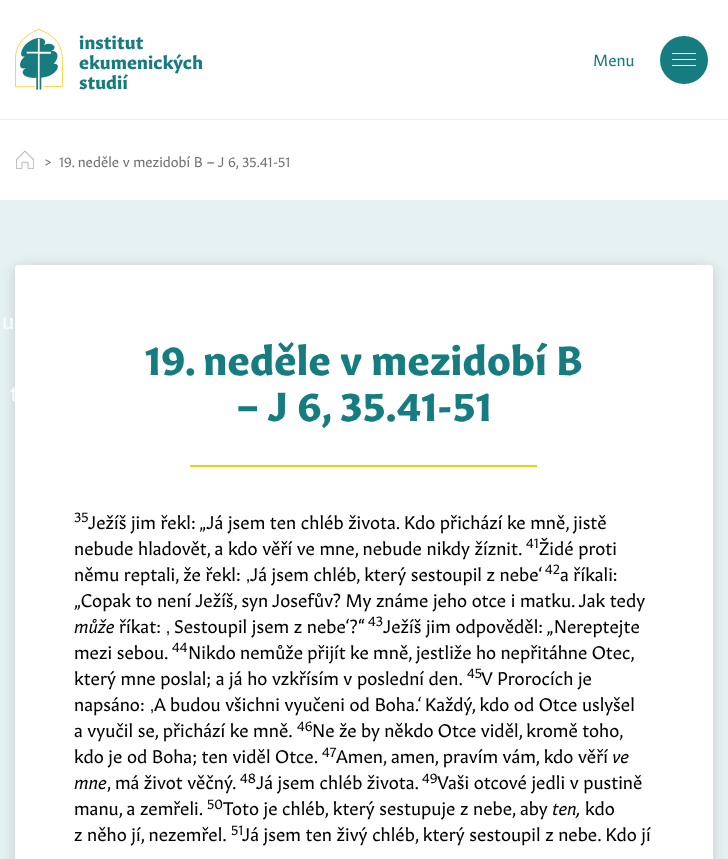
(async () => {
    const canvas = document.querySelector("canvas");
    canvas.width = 728;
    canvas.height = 859;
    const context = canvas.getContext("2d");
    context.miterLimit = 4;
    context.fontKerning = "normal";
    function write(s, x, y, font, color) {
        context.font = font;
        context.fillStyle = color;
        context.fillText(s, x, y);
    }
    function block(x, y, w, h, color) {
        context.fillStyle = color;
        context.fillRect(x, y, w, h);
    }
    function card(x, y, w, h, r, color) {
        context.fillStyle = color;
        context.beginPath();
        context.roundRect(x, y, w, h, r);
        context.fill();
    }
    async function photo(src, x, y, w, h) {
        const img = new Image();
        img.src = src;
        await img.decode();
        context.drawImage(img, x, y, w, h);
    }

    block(0, 0, 728, 859, "rgb(255, 255, 255)");
    block(0, 119, 728, 1, "rgb(230, 241, 241)");
    await photo("media/1.png", 15, 29, 48, 61);
    context.letterSpacing = "0.1px";
    write("institut", 79, 49, "bold 18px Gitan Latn", "rgb(22, 124, 128)");
    write("ekumenických", 79, 69, "bold 18px Gitan Latn", "rgb(22, 124, 128)");
    write("studií", 79, 89, "bold 18px Gitan Latn", "rgb(22, 124, 128)");
    context.beginPath();
    context.arc(684, 60, 24, 0, Math.PI * 2);
    context.fill();
    block(672, 53, 24, 1, "rgb(255, 255, 255)");
    context.letterSpacing = "0px";
    write("Menu", 593, 66, "16px Gitan Latn", "rgb(22, 124, 128)");
    block(672, 59, 24, 1, "rgb(255, 255, 255)");
    block(672, 65, 24, 1, "rgb(255, 255, 255)");
    block(0, 200, 728, 659, "rgb(230, 241, 241)");
    context.fillStyle = "rgba(0, 0, 0, 0.15)";
    context.filter = "blur(7px)";
    context.beginPath();
    context.roundRect(15, 267, 698, 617, 4);
    context.fill();
    context.filter = "none";
    write("u", 2, 329, "22px Gitan Latn", "rgb(250, 251, 251)");
    card(15, 265, 698, 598, 4, "rgb(255, 255, 255)");
    write("t", 10, 401, "22px Gitan Latn", "rgb(250, 251, 251)");
    await photo("media/2.png", 16, 151, 18, 18);
    write(">", 44, 167, "14px Gitan Latn", "rgb(114, 114, 114)");
    write("19. neděle v mezidobí B – J 6, 35.41-51", 59, 167, "14px Gitan Latn", "rgb(114, 114, 114)");
    context.letterSpacing = "0.2px";
    write("19. neděle v mezidobí B", 145, 375, "bold 40px Gitan Latn", "rgb(22, 124, 128)");
    write("– J 6, 35.41-51", 236, 421, "bold 40px Gitan Latn", "rgb(22, 124, 128)");
    block(190, 465, 347, 2, "rgb(250, 202, 12)");
    context.letterSpacing = "0px";
    write("35", 74, 522, "14px Gitan Latn", "rgb(0, 0, 0)");
    write("Ježíš jim řekl: „Já jsem ten chléb života. Kdo přichází ke mně, jistě", 88, 529, "18px Gitan Latn", "rgb(0, 0, 0)");
    write("nebude hladovět, a kdo věří ve mne, nebude nikdy žíznit.", 74, 555, "18px Gitan Latn", "rgb(0, 0, 0)");
    write("41", 526, 548, "14px Gitan Latn", "rgb(0, 0, 0)");
    write("Židé proti", 539, 555, "18px Gitan Latn", "rgb(0, 0, 0)");
    write("němu reptali, že řekl:", 74, 581, "18px Gitan Latn", "rgb(0, 0, 0)");
    write("‚", 246, 581, "18px Liberation Sans", "rgb(0, 0, 0)");
    write("Já jsem chléb, který sestoupil z nebe‘", 250, 581, "18px Gitan Latn", "rgb(0, 0, 0)");
    write("42", 545, 574, "14px Gitan Latn", "rgb(0, 0, 0)");
    write("a říkali:", 560, 581, "18px Gitan Latn", "rgb(0, 0, 0)");
    write("„Copak to není Ježíš, syn Josefův? My známe jeho otce i matku. Jak tedy", 74, 607, "18px Gitan Latn", "rgb(0, 0, 0)");
    write("může", 74, 633, "italic 18px Gitan Latn", "rgb(0, 0, 0)");
    write("říkat:", 119, 633, "18px Gitan Latn", "rgb(0, 0, 0)");
    write("‚", 166, 633, "18px Liberation Sans", "rgb(0, 0, 0)");
    write("Sestoupil jsem z nebe‘?“", 174, 633, "18px Gitan Latn", "rgb(0, 0, 0)");
    write("43", 368, 626, "14px Gitan Latn", "rgb(0, 0, 0)");
    write("Ježíš jim odpověděl: „Nereptejte", 383, 633, "18px Gitan Latn", "rgb(0, 0, 0)");
    write("mezi sebou.", 74, 659, "18px Gitan Latn", "rgb(0, 0, 0)");
    write("44", 172, 652, "14px Gitan Latn", "rgb(0, 0, 0)");
    context.wordSpacing = "-0.25px";
    write("Nikdo nemůže přijít ke mně, jestliže ho nepřitáhne Otec,", 188, 659, "18px Gitan Latn", "rgb(0, 0, 0)");
    context.wordSpacing = "0px";
    write("který mne poslal; a já ho vzkřísím v poslední den.", 74, 685, "18px Gitan Latn", "rgb(0, 0, 0)");
    write("45", 467, 678, "14px Gitan Latn", "rgb(0, 0, 0)");
    write("V Prorocích je", 481, 685, "18px Gitan Latn", "rgb(0, 0, 0)");
    write("napsáno:", 74, 711, "18px Gitan Latn", "rgb(0, 0, 0)");
    write("‚", 150, 711, "18px Liberation Sans", "rgb(0, 0, 0)");
    write("A budou všichni vyučeni od Boha.‘ Každý, kdo od Otce uslyšel", 154, 711, "18px Gitan Latn", "rgb(0, 0, 0)");
    write("a vyučil se, přichází ke mně.", 74, 737, "18px Gitan Latn", "rgb(0, 0, 0)");
    write("46", 297, 731, "14px Gitan Latn", "rgb(0, 0, 0)");
    context.wordSpacing = "-0.25px";
    write("Ne že by někdo Otce viděl, kromě toho,", 312, 737, "18px Gitan Latn", "rgb(0, 0, 0)");
    context.wordSpacing = "0px";
    write("kdo je od Boha; ten viděl Otce.", 74, 763, "18px Gitan Latn", "rgb(0, 0, 0)");
    write("47", 322, 757, "14px Gitan Latn", "rgb(0, 0, 0)");
    write("Amen, amen, pravím vám, kdo věří", 336, 763, "18px Gitan Latn", "rgb(0, 0, 0)");
    write("ve", 612, 763, "italic 18px Gitan Latn", "rgb(0, 0, 0)");
    write("mne", 74, 789, "italic 18px Gitan Latn", "rgb(0, 0, 0)");
    write(", má život věčný.", 107, 789, "18px Gitan Latn", "rgb(0, 0, 0)");
    write("48", 240, 783, "14px Gitan Latn", "rgb(0, 0, 0)");
    write("Já jsem chléb života.", 256, 789, "18px Gitan Latn", "rgb(0, 0, 0)");
    write("49", 422, 783, "14px Gitan Latn", "rgb(0, 0, 0)");
    write("Vaši otcové jedli v pustině", 437, 789, "18px Gitan Latn", "rgb(0, 0, 0)");
    write("manu, a zemřeli.", 74, 815, "18px Gitan Latn", "rgb(0, 0, 0)");
    write("50", 207, 809, "14px Gitan Latn", "rgb(0, 0, 0)");
    write("Toto je chléb, který sestupuje z nebe, aby", 223, 815, "18px Gitan Latn", "rgb(0, 0, 0)");
    write("ten,", 552, 815, "italic 18px Gitan Latn", "rgb(0, 0, 0)");
    write("kdo", 585, 815, "18px Gitan Latn", "rgb(0, 0, 0)");
    write("z něho jí, nezemřel.", 74, 841, "18px Gitan Latn", "rgb(0, 0, 0)");
    write("51", 231, 835, "14px Gitan Latn", "rgb(0, 0, 0)");
    write("Já jsem ten živý chléb, který sestoupil z nebe. Kdo jí", 242, 841, "18px Gitan Latn", "rgb(0, 0, 0)");
})();
